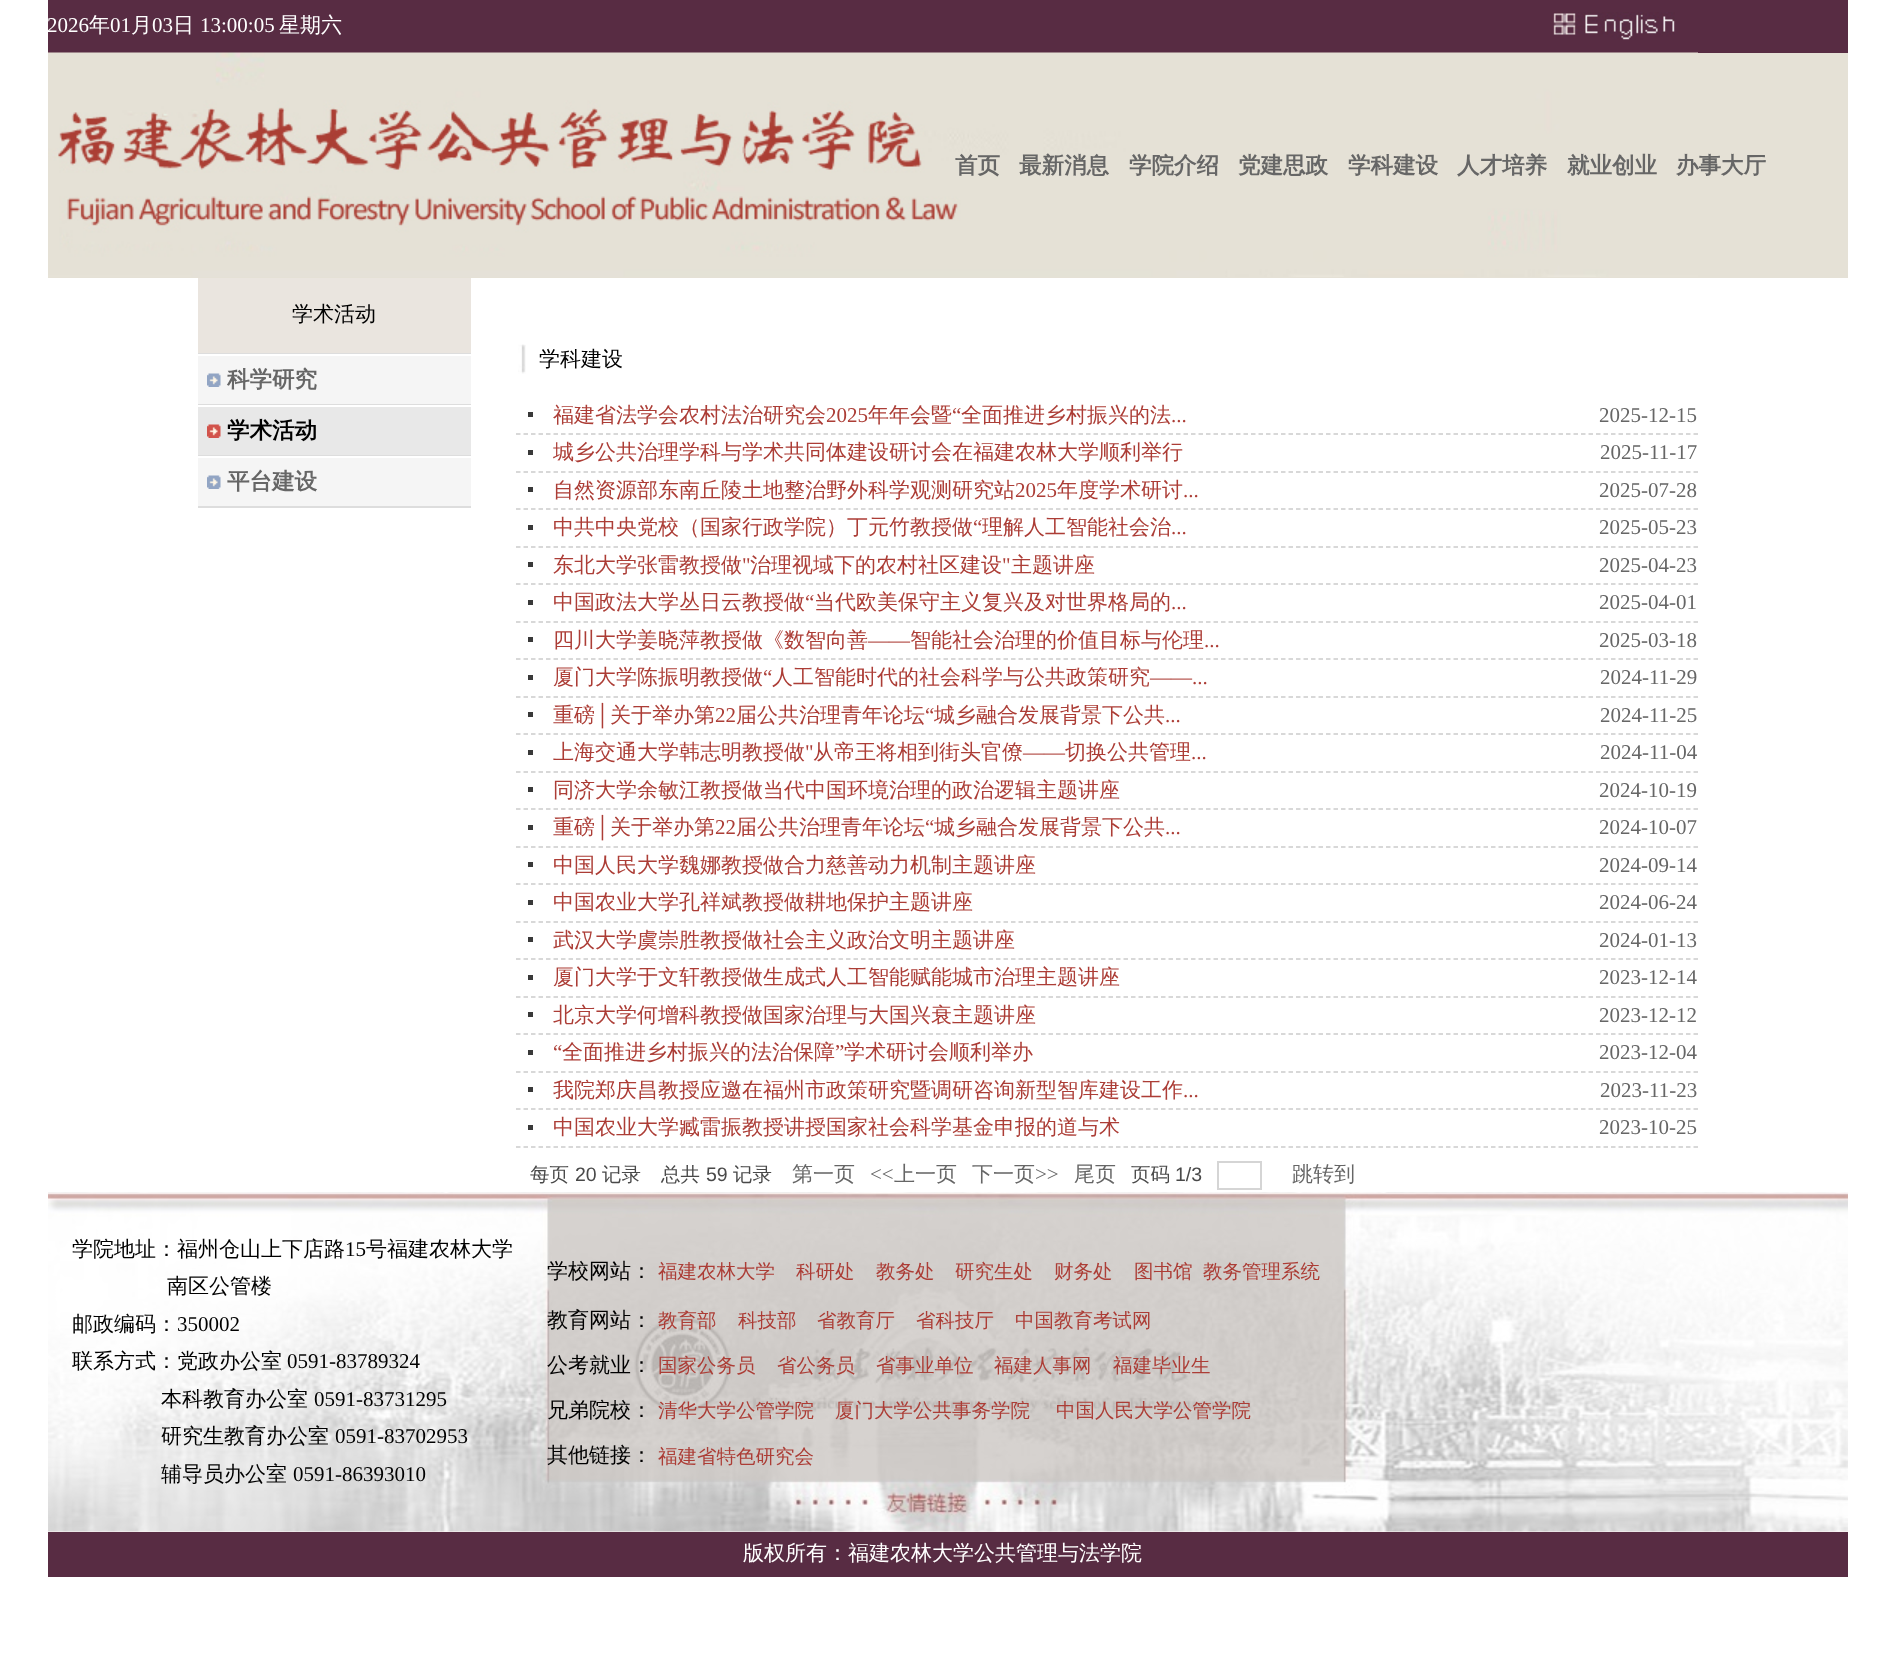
(async () => {
    const canvas = document.querySelector("canvas");
    canvas.width = 1894;
    canvas.height = 1672;
    const context = canvas.getContext("2d");
    context.miterLimit = 4;
    context.fontKerning = "normal";
    function write(s, x, y, font, color) {
        context.font = font;
        context.fillStyle = color;
        context.fillText(s, x, y);
    }
    function block(x, y, w, h, color) {
        context.fillStyle = color;
        context.fillRect(x, y, w, h);
    }
    async function photo(src, x, y, w, h) {
        const img = new Image();
        img.src = src;
        await img.decode();
        context.drawImage(img, x, y, w, h);
    }

    block(0, 0, 1894, 1672, "rgb(255, 255, 255)");
    block(48, 0, 1800, 53, "rgb(88, 44, 67)");
    write("2026", 47, 32, "21px Liberation Serif", "rgb(255, 255, 255)");
    write("年", 89, 32, "500 21px WenQuanYi Zen Hei", "rgb(255, 255, 255)");
    write("01", 110, 32, "21px Liberation Serif", "rgb(255, 255, 255)");
    write("月", 131, 32, "500 21px WenQuanYi Zen Hei", "rgb(255, 255, 255)");
    write("03", 152, 32, "21px Liberation Serif", "rgb(255, 255, 255)");
    write("日", 173, 32, "500 21px WenQuanYi Zen Hei", "rgb(255, 255, 255)");
    write("13:00:05", 200, 32, "21px Liberation Serif", "rgb(255, 255, 255)");
    write("星期六", 279, 32, "500 21px WenQuanYi Zen Hei", "rgb(255, 255, 255)");
    await photo("media/1.png", 1553, 12, 122, 28);
    block(48, 53, 1800, 225, "rgb(229, 225, 214)");
    await photo("media/2.png", 48, 52, 1650, 225);
    write("首页", 955, 173, "bold 22.5px WenQuanYi Zen Hei", "rgb(102, 102, 102)");
    write("最新消息", 1019, 173, "bold 22.5px WenQuanYi Zen Hei", "rgb(102, 102, 102)");
    write("学院介绍", 1129, 173, "bold 22.5px WenQuanYi Zen Hei", "rgb(102, 102, 102)");
    write("党建思政", 1238, 173, "bold 22.5px WenQuanYi Zen Hei", "rgb(102, 102, 102)");
    write("学科建设", 1348, 173, "bold 22.5px WenQuanYi Zen Hei", "rgb(102, 102, 102)");
    write("人才培养", 1457, 173, "bold 22.5px WenQuanYi Zen Hei", "rgb(102, 102, 102)");
    write("就业创业", 1567, 173, "bold 22.5px WenQuanYi Zen Hei", "rgb(102, 102, 102)");
    write("办事大厅", 1676, 173, "bold 22.5px WenQuanYi Zen Hei", "rgb(102, 102, 102)");
    block(198, 278, 273, 75, "rgb(234, 229, 223)");
    write("学术活动", 292, 321, "500 21px WenQuanYi Zen Hei", "rgb(0, 0, 0)");
    block(198, 353, 273, 1, "rgb(221, 221, 221)");
    block(198, 356, 273, 48, "rgb(245, 245, 245)");
    await photo("media/3.png", 207, 373, 14, 14);
    block(198, 404, 273, 1, "rgb(221, 221, 221)");
    write("科学研究", 227, 387, "bold 22.5px WenQuanYi Zen Hei", "rgb(102, 102, 102)");
    block(198, 407, 273, 48, "rgb(232, 232, 232)");
    await photo("media/4.png", 207, 424, 14, 14);
    block(198, 455, 273, 1, "rgb(221, 221, 221)");
    write("学术活动", 227, 438, "bold 22.5px WenQuanYi Zen Hei", "rgb(0, 0, 0)");
    block(198, 458, 273, 48, "rgb(245, 245, 245)");
    await photo("media/3.png", 207, 475, 14, 14);
    block(198, 506, 273, 2, "rgb(221, 221, 221)");
    write("平台建设", 227, 489, "bold 22.5px WenQuanYi Zen Hei", "rgb(102, 102, 102)");
    await photo("media/5.png", 518, 344, 8, 30);
    write("学科建设", 539, 366, "500 21px WenQuanYi Zen Hei", "rgb(0, 0, 0)");
    context.beginPath();
    context.moveTo(516, 434);
    context.lineTo(1698, 434);
    context.strokeStyle = "rgb(204, 204, 204)";
    context.lineWidth = 1.5;
    context.setLineDash([4.5, 3]);
    context.stroke();
    block(528, 412, 5, 5, "rgb(57, 57, 57)");
    write("福建省法学会农村法治研究会", 553, 422, "500 21px WenQuanYi Zen Hei", "rgb(172, 61, 54)");
    write("2025", 826, 422, "21px Liberation Serif", "rgb(172, 61, 54)");
    write("年年会暨", 868, 422, "500 21px WenQuanYi Zen Hei", "rgb(172, 61, 54)");
    write("“", 952, 422, "21px Liberation Serif", "rgb(172, 61, 54)");
    write("全面推进乡村振兴的法", 961, 422, "500 21px WenQuanYi Zen Hei", "rgb(172, 61, 54)");
    write("...", 1171, 422, "21px Liberation Serif", "rgb(172, 61, 54)");
    write("2025-12-15", 1599, 422, "21px Liberation Serif", "rgb(102, 102, 102)");
    context.beginPath();
    context.moveTo(516, 472);
    context.lineTo(1698, 472);
    context.stroke();
    block(528, 450, 5, 5, "rgb(57, 57, 57)");
    write("城乡公共治理学科与学术共同体建设研讨会在福建农林大学顺利举行", 553, 459, "500 21px WenQuanYi Zen Hei", "rgb(172, 61, 54)");
    write("2025-11-17", 1600, 459, "21px Liberation Serif", "rgb(102, 102, 102)");
    context.beginPath();
    context.moveTo(516, 509);
    context.lineTo(1698, 509);
    context.stroke();
    block(528, 487, 5, 5, "rgb(57, 57, 57)");
    write("自然资源部东南丘陵土地整治野外科学观测研究站", 553, 497, "500 21px WenQuanYi Zen Hei", "rgb(172, 61, 54)");
    write("2025", 1015, 497, "21px Liberation Serif", "rgb(172, 61, 54)");
    write("年度学术研讨", 1057, 497, "500 21px WenQuanYi Zen Hei", "rgb(172, 61, 54)");
    write("...", 1183, 497, "21px Liberation Serif", "rgb(172, 61, 54)");
    write("2025-07-28", 1599, 497, "21px Liberation Serif", "rgb(102, 102, 102)");
    context.beginPath();
    context.moveTo(516, 547);
    context.lineTo(1698, 547);
    context.stroke();
    block(528, 525, 5, 5, "rgb(57, 57, 57)");
    write("中共中央党校（国家行政学院）丁元竹教授做", 553, 534, "500 21px WenQuanYi Zen Hei", "rgb(172, 61, 54)");
    write("“", 973, 534, "21px Liberation Serif", "rgb(172, 61, 54)");
    write("理解人工智能社会治", 982, 534, "500 21px WenQuanYi Zen Hei", "rgb(172, 61, 54)");
    write("...", 1171, 534, "21px Liberation Serif", "rgb(172, 61, 54)");
    write("2025-05-23", 1599, 534, "21px Liberation Serif", "rgb(102, 102, 102)");
    context.beginPath();
    context.moveTo(516, 584);
    context.lineTo(1698, 584);
    context.stroke();
    block(528, 562, 5, 5, "rgb(57, 57, 57)");
    write("东北大学张雷教授做", 553, 572, "500 21px WenQuanYi Zen Hei", "rgb(172, 61, 54)");
    write("\"", 742, 572, "21px Liberation Serif", "rgb(172, 61, 54)");
    write("治理视域下的农村社区建设", 750, 572, "500 21px WenQuanYi Zen Hei", "rgb(172, 61, 54)");
    write("\"", 1002, 572, "21px Liberation Serif", "rgb(172, 61, 54)");
    write("主题讲座", 1011, 572, "500 21px WenQuanYi Zen Hei", "rgb(172, 61, 54)");
    write("2025-04-23", 1599, 572, "21px Liberation Serif", "rgb(102, 102, 102)");
    context.beginPath();
    context.moveTo(516, 622);
    context.lineTo(1698, 622);
    context.stroke();
    block(528, 600, 5, 5, "rgb(57, 57, 57)");
    write("中国政法大学丛日云教授做", 553, 609, "500 21px WenQuanYi Zen Hei", "rgb(172, 61, 54)");
    write("“", 805, 609, "21px Liberation Serif", "rgb(172, 61, 54)");
    write("当代欧美保守主义复兴及对世界格局的", 814, 609, "500 21px WenQuanYi Zen Hei", "rgb(172, 61, 54)");
    write("...", 1171, 609, "21px Liberation Serif", "rgb(172, 61, 54)");
    write("2025-04-01", 1599, 609, "21px Liberation Serif", "rgb(102, 102, 102)");
    context.beginPath();
    context.moveTo(516, 659);
    context.lineTo(1698, 659);
    context.stroke();
    block(528, 637, 5, 5, "rgb(57, 57, 57)");
    write("四川大学姜晓萍教授做《数智向善", 553, 647, "500 21px WenQuanYi Zen Hei", "rgb(172, 61, 54)");
    write("——", 868, 647, "21px Liberation Serif", "rgb(172, 61, 54)");
    write("智能社会治理的价值目标与伦理", 910, 647, "500 21px WenQuanYi Zen Hei", "rgb(172, 61, 54)");
    write("...", 1204, 647, "21px Liberation Serif", "rgb(172, 61, 54)");
    write("2025-03-18", 1599, 647, "21px Liberation Serif", "rgb(102, 102, 102)");
    context.beginPath();
    context.moveTo(516, 697);
    context.lineTo(1698, 697);
    context.stroke();
    block(528, 675, 5, 5, "rgb(57, 57, 57)");
    write("厦门大学陈振明教授做", 553, 684, "500 21px WenQuanYi Zen Hei", "rgb(172, 61, 54)");
    write("“", 763, 684, "21px Liberation Serif", "rgb(172, 61, 54)");
    write("人工智能时代的社会科学与公共政策研究", 772, 684, "500 21px WenQuanYi Zen Hei", "rgb(172, 61, 54)");
    write("——...", 1150, 684, "21px Liberation Serif", "rgb(172, 61, 54)");
    write("2024-11-29", 1600, 684, "21px Liberation Serif", "rgb(102, 102, 102)");
    context.beginPath();
    context.moveTo(516, 734);
    context.lineTo(1698, 734);
    context.stroke();
    block(528, 712, 5, 5, "rgb(57, 57, 57)");
    write("重磅", 553, 722, "500 21px WenQuanYi Zen Hei", "rgb(172, 61, 54)");
    write("│", 595, 722, "21px Liberation Serif", "rgb(172, 61, 54)");
    write("关于举办第", 610, 722, "500 21px WenQuanYi Zen Hei", "rgb(172, 61, 54)");
    write("22", 715, 722, "21px Liberation Serif", "rgb(172, 61, 54)");
    write("届公共治理青年论坛", 736, 722, "500 21px WenQuanYi Zen Hei", "rgb(172, 61, 54)");
    write("“", 925, 722, "21px Liberation Serif", "rgb(172, 61, 54)");
    write("城乡融合发展背景下公共", 934, 722, "500 21px WenQuanYi Zen Hei", "rgb(172, 61, 54)");
    write("...", 1165, 722, "21px Liberation Serif", "rgb(172, 61, 54)");
    write("2024-11-25", 1600, 722, "21px Liberation Serif", "rgb(102, 102, 102)");
    context.beginPath();
    context.moveTo(516, 772);
    context.lineTo(1698, 772);
    context.stroke();
    block(528, 750, 5, 5, "rgb(57, 57, 57)");
    write("上海交通大学韩志明教授做", 553, 759, "500 21px WenQuanYi Zen Hei", "rgb(172, 61, 54)");
    write("\"", 805, 759, "21px Liberation Serif", "rgb(172, 61, 54)");
    write("从帝王将相到街头官僚", 813, 759, "500 21px WenQuanYi Zen Hei", "rgb(172, 61, 54)");
    write("——", 1023, 759, "21px Liberation Serif", "rgb(172, 61, 54)");
    write("切换公共管理", 1065, 759, "500 21px WenQuanYi Zen Hei", "rgb(172, 61, 54)");
    write("...", 1191, 759, "21px Liberation Serif", "rgb(172, 61, 54)");
    write("2024-11-04", 1600, 759, "21px Liberation Serif", "rgb(102, 102, 102)");
    context.beginPath();
    context.moveTo(516, 809);
    context.lineTo(1698, 809);
    context.stroke();
    block(528, 787, 5, 5, "rgb(57, 57, 57)");
    write("同济大学余敏江教授做当代中国环境治理的政治逻辑主题讲座", 553, 797, "500 21px WenQuanYi Zen Hei", "rgb(172, 61, 54)");
    write("2024-10-19", 1599, 797, "21px Liberation Serif", "rgb(102, 102, 102)");
    context.beginPath();
    context.moveTo(516, 847);
    context.lineTo(1698, 847);
    context.stroke();
    block(528, 825, 5, 5, "rgb(57, 57, 57)");
    write("重磅", 553, 834, "500 21px WenQuanYi Zen Hei", "rgb(172, 61, 54)");
    write("│", 595, 834, "21px Liberation Serif", "rgb(172, 61, 54)");
    write("关于举办第", 610, 834, "500 21px WenQuanYi Zen Hei", "rgb(172, 61, 54)");
    write("22", 715, 834, "21px Liberation Serif", "rgb(172, 61, 54)");
    write("届公共治理青年论坛", 736, 834, "500 21px WenQuanYi Zen Hei", "rgb(172, 61, 54)");
    write("“", 925, 834, "21px Liberation Serif", "rgb(172, 61, 54)");
    write("城乡融合发展背景下公共", 934, 834, "500 21px WenQuanYi Zen Hei", "rgb(172, 61, 54)");
    write("...", 1165, 834, "21px Liberation Serif", "rgb(172, 61, 54)");
    write("2024-10-07", 1599, 834, "21px Liberation Serif", "rgb(102, 102, 102)");
    context.beginPath();
    context.moveTo(516, 884);
    context.lineTo(1698, 884);
    context.stroke();
    block(528, 862, 5, 5, "rgb(57, 57, 57)");
    write("中国人民大学魏娜教授做合力慈善动力机制主题讲座", 553, 872, "500 21px WenQuanYi Zen Hei", "rgb(172, 61, 54)");
    write("2024-09-14", 1599, 872, "21px Liberation Serif", "rgb(102, 102, 102)");
    context.beginPath();
    context.moveTo(516, 922);
    context.lineTo(1698, 922);
    context.stroke();
    block(528, 900, 5, 5, "rgb(57, 57, 57)");
    write("中国农业大学孔祥斌教授做耕地保护主题讲座", 553, 909, "500 21px WenQuanYi Zen Hei", "rgb(172, 61, 54)");
    write("2024-06-24", 1599, 909, "21px Liberation Serif", "rgb(102, 102, 102)");
    context.beginPath();
    context.moveTo(516, 959);
    context.lineTo(1698, 959);
    context.stroke();
    block(528, 937, 5, 5, "rgb(57, 57, 57)");
    write("武汉大学虞崇胜教授做社会主义政治文明主题讲座", 553, 947, "500 21px WenQuanYi Zen Hei", "rgb(172, 61, 54)");
    write("2024-01-13", 1599, 947, "21px Liberation Serif", "rgb(102, 102, 102)");
    context.beginPath();
    context.moveTo(516, 997);
    context.lineTo(1698, 997);
    context.stroke();
    block(528, 975, 5, 5, "rgb(57, 57, 57)");
    write("厦门大学于文轩教授做生成式人工智能赋能城市治理主题讲座", 553, 984, "500 21px WenQuanYi Zen Hei", "rgb(172, 61, 54)");
    write("2023-12-14", 1599, 984, "21px Liberation Serif", "rgb(102, 102, 102)");
    context.beginPath();
    context.moveTo(516, 1034);
    context.lineTo(1698, 1034);
    context.stroke();
    block(528, 1012, 5, 5, "rgb(57, 57, 57)");
    write("北京大学何增科教授做国家治理与大国兴衰主题讲座", 553, 1022, "500 21px WenQuanYi Zen Hei", "rgb(172, 61, 54)");
    write("2023-12-12", 1599, 1022, "21px Liberation Serif", "rgb(102, 102, 102)");
    context.beginPath();
    context.moveTo(516, 1072);
    context.lineTo(1698, 1072);
    context.stroke();
    block(528, 1050, 5, 5, "rgb(57, 57, 57)");
    write("“", 553, 1059, "21px Liberation Serif", "rgb(172, 61, 54)");
    write("全面推进乡村振兴的法治保障", 562, 1059, "500 21px WenQuanYi Zen Hei", "rgb(172, 61, 54)");
    write("”", 835, 1059, "21px Liberation Serif", "rgb(172, 61, 54)");
    write("学术研讨会顺利举办", 844, 1059, "500 21px WenQuanYi Zen Hei", "rgb(172, 61, 54)");
    write("2023-12-04", 1599, 1059, "21px Liberation Serif", "rgb(102, 102, 102)");
    context.beginPath();
    context.moveTo(516, 1109);
    context.lineTo(1698, 1109);
    context.stroke();
    block(528, 1087, 5, 5, "rgb(57, 57, 57)");
    write("我院郑庆昌教授应邀在福州市政策研究暨调研咨询新型智库建设工作", 553, 1097, "500 21px WenQuanYi Zen Hei", "rgb(172, 61, 54)");
    write("...", 1183, 1097, "21px Liberation Serif", "rgb(172, 61, 54)");
    write("2023-11-23", 1600, 1097, "21px Liberation Serif", "rgb(102, 102, 102)");
    context.beginPath();
    context.moveTo(516, 1147);
    context.lineTo(1698, 1147);
    context.stroke();
    block(528, 1125, 5, 5, "rgb(57, 57, 57)");
    write("中国农业大学臧雷振教授讲授国家社会科学基金申报的道与术", 553, 1134, "500 21px WenQuanYi Zen Hei", "rgb(172, 61, 54)");
    write("2023-10-25", 1599, 1134, "21px Liberation Serif", "rgb(102, 102, 102)");
    write("每页", 530, 1181, "500 19.5px WenQuanYi Zen Hei", "rgb(73, 73, 73)");
    write("20", 575, 1181, "19.5px Liberation Sans", "rgb(73, 73, 73)");
    write("记录", 602, 1181, "500 19.5px WenQuanYi Zen Hei", "rgb(73, 73, 73)");
    write("总共", 661, 1181, "500 19.5px WenQuanYi Zen Hei", "rgb(73, 73, 73)");
    write("59", 706, 1181, "19.5px Liberation Sans", "rgb(73, 73, 73)");
    write("记录", 733, 1181, "500 19.5px WenQuanYi Zen Hei", "rgb(73, 73, 73)");
    write("第一页", 792, 1181, "500 21px WenQuanYi Zen Hei", "rgb(102, 102, 102)");
    write("<<", 870, 1181, "21px Liberation Serif", "rgb(102, 102, 102)");
    write("上一页", 894, 1181, "500 21px WenQuanYi Zen Hei", "rgb(102, 102, 102)");
    write("下一页", 972, 1181, "500 21px WenQuanYi Zen Hei", "rgb(102, 102, 102)");
    write(">>", 1035, 1181, "21px Liberation Serif", "rgb(102, 102, 102)");
    write("尾页", 1074, 1181, "500 21px WenQuanYi Zen Hei", "rgb(102, 102, 102)");
    write("页码", 1131, 1181, "500 19.5px WenQuanYi Zen Hei", "rgb(73, 73, 73)");
    write("1/3", 1175, 1181, "19.5px Liberation Sans", "rgb(73, 73, 73)");
    context.strokeStyle = "rgb(213, 213, 213)";
    context.lineWidth = 2;
    context.setLineDash([]);
    context.strokeRect(1218, 1162, 43, 27);
    write("跳转到", 1292, 1181, "500 21px WenQuanYi Zen Hei", "rgb(102, 102, 102)");
    await photo("media/6.png", 48, 1192, 1800, 340);
    write("学院地址：福州仓山上下店路", 72, 1256, "500 21px WenQuanYi Zen Hei", "rgb(0, 0, 0)");
    write("15", 345, 1256, "21px Liberation Serif", "rgb(0, 0, 0)");
    write("号福建农林大学", 366, 1256, "500 21px WenQuanYi Zen Hei", "rgb(0, 0, 0)");
    write("南区公管楼", 167, 1293, "500 21px WenQuanYi Zen Hei", "rgb(0, 0, 0)");
    write("邮政编码：", 72, 1331, "500 21px WenQuanYi Zen Hei", "rgb(0, 0, 0)");
    write("350002", 177, 1331, "21px Liberation Serif", "rgb(0, 0, 0)");
    write("联系方式：党政办公室", 72, 1368, "500 21px WenQuanYi Zen Hei", "rgb(0, 0, 0)");
    write("0591-83789324", 287, 1368, "21px Liberation Serif", "rgb(0, 0, 0)");
    write("本科教育办公室", 161, 1406, "500 21px WenQuanYi Zen Hei", "rgb(0, 0, 0)");
    write("0591-83731295", 314, 1406, "21px Liberation Serif", "rgb(0, 0, 0)");
    write("研究生教育办公室", 161, 1443, "500 21px WenQuanYi Zen Hei", "rgb(0, 0, 0)");
    write("0591-83702953", 335, 1443, "21px Liberation Serif", "rgb(0, 0, 0)");
    write("辅导员办公室", 161, 1481, "500 21px WenQuanYi Zen Hei", "rgb(0, 0, 0)");
    write("0591-86393010", 293, 1481, "21px Liberation Serif", "rgb(0, 0, 0)");
    write("学校网站：", 547, 1278, "500 21px WenQuanYi Zen Hei", "rgb(0, 0, 0)");
    write("福建农林大学", 658, 1278, "500 19.5px WenQuanYi Zen Hei", "rgb(172, 61, 54)");
    write("科研处", 796, 1278, "500 19.5px WenQuanYi Zen Hei", "rgb(172, 61, 54)");
    write("教务处", 876, 1278, "500 19.5px WenQuanYi Zen Hei", "rgb(172, 61, 54)");
    write("研究生处", 955, 1278, "500 19.5px WenQuanYi Zen Hei", "rgb(172, 61, 54)");
    write("财务处", 1054, 1278, "500 19.5px WenQuanYi Zen Hei", "rgb(172, 61, 54)");
    write("图书馆", 1134, 1278, "500 19.5px WenQuanYi Zen Hei", "rgb(172, 61, 54)");
    write("教务管理系统", 1203, 1278, "500 19.5px WenQuanYi Zen Hei", "rgb(172, 61, 54)");
    write("教育网站：", 547, 1327, "500 21px WenQuanYi Zen Hei", "rgb(0, 0, 0)");
    write("教育部", 658, 1327, "500 19.5px WenQuanYi Zen Hei", "rgb(172, 61, 54)");
    write("科技部", 738, 1327, "500 19.5px WenQuanYi Zen Hei", "rgb(172, 61, 54)");
    write("省教育厅", 817, 1327, "500 19.5px WenQuanYi Zen Hei", "rgb(172, 61, 54)");
    write("省科技厅", 916, 1327, "500 19.5px WenQuanYi Zen Hei", "rgb(172, 61, 54)");
    write("中国教育考试网", 1015, 1327, "500 19.5px WenQuanYi Zen Hei", "rgb(172, 61, 54)");
    write("公考就业：", 547, 1372, "500 21px WenQuanYi Zen Hei", "rgb(0, 0, 0)");
    write("国家公务员", 658, 1372, "500 19.5px WenQuanYi Zen Hei", "rgb(172, 61, 54)");
    write("省公务员", 777, 1372, "500 19.5px WenQuanYi Zen Hei", "rgb(172, 61, 54)");
    write("省事业单位", 876, 1372, "500 19.5px WenQuanYi Zen Hei", "rgb(172, 61, 54)");
    write("福建人事网", 994, 1372, "500 19.5px WenQuanYi Zen Hei", "rgb(172, 61, 54)");
    write("福建毕业生", 1113, 1372, "500 19.5px WenQuanYi Zen Hei", "rgb(172, 61, 54)");
    write("兄弟院校：", 547, 1417, "500 21px WenQuanYi Zen Hei", "rgb(0, 0, 0)");
    write("清华大学公管学院", 658, 1417, "500 19.5px WenQuanYi Zen Hei", "rgb(172, 61, 54)");
    write("厦门大学公共事务学院", 835, 1417, "500 19.5px WenQuanYi Zen Hei", "rgb(172, 61, 54)");
    write("中国人民大学公管学院", 1056, 1417, "500 19.5px WenQuanYi Zen Hei", "rgb(172, 61, 54)");
    write("其他链接：", 547, 1462, "500 21px WenQuanYi Zen Hei", "rgb(0, 0, 0)");
    write("福建省特色研究会", 658, 1463, "500 19.5px WenQuanYi Zen Hei", "rgb(172, 61, 54)");
    block(48, 1532, 1800, 45, "rgb(88, 44, 67)");
    write("版权所有：福建农林大学公共管理与法学院", 743, 1560, "500 21px WenQuanYi Zen Hei", "rgb(255, 255, 255)");
})();
